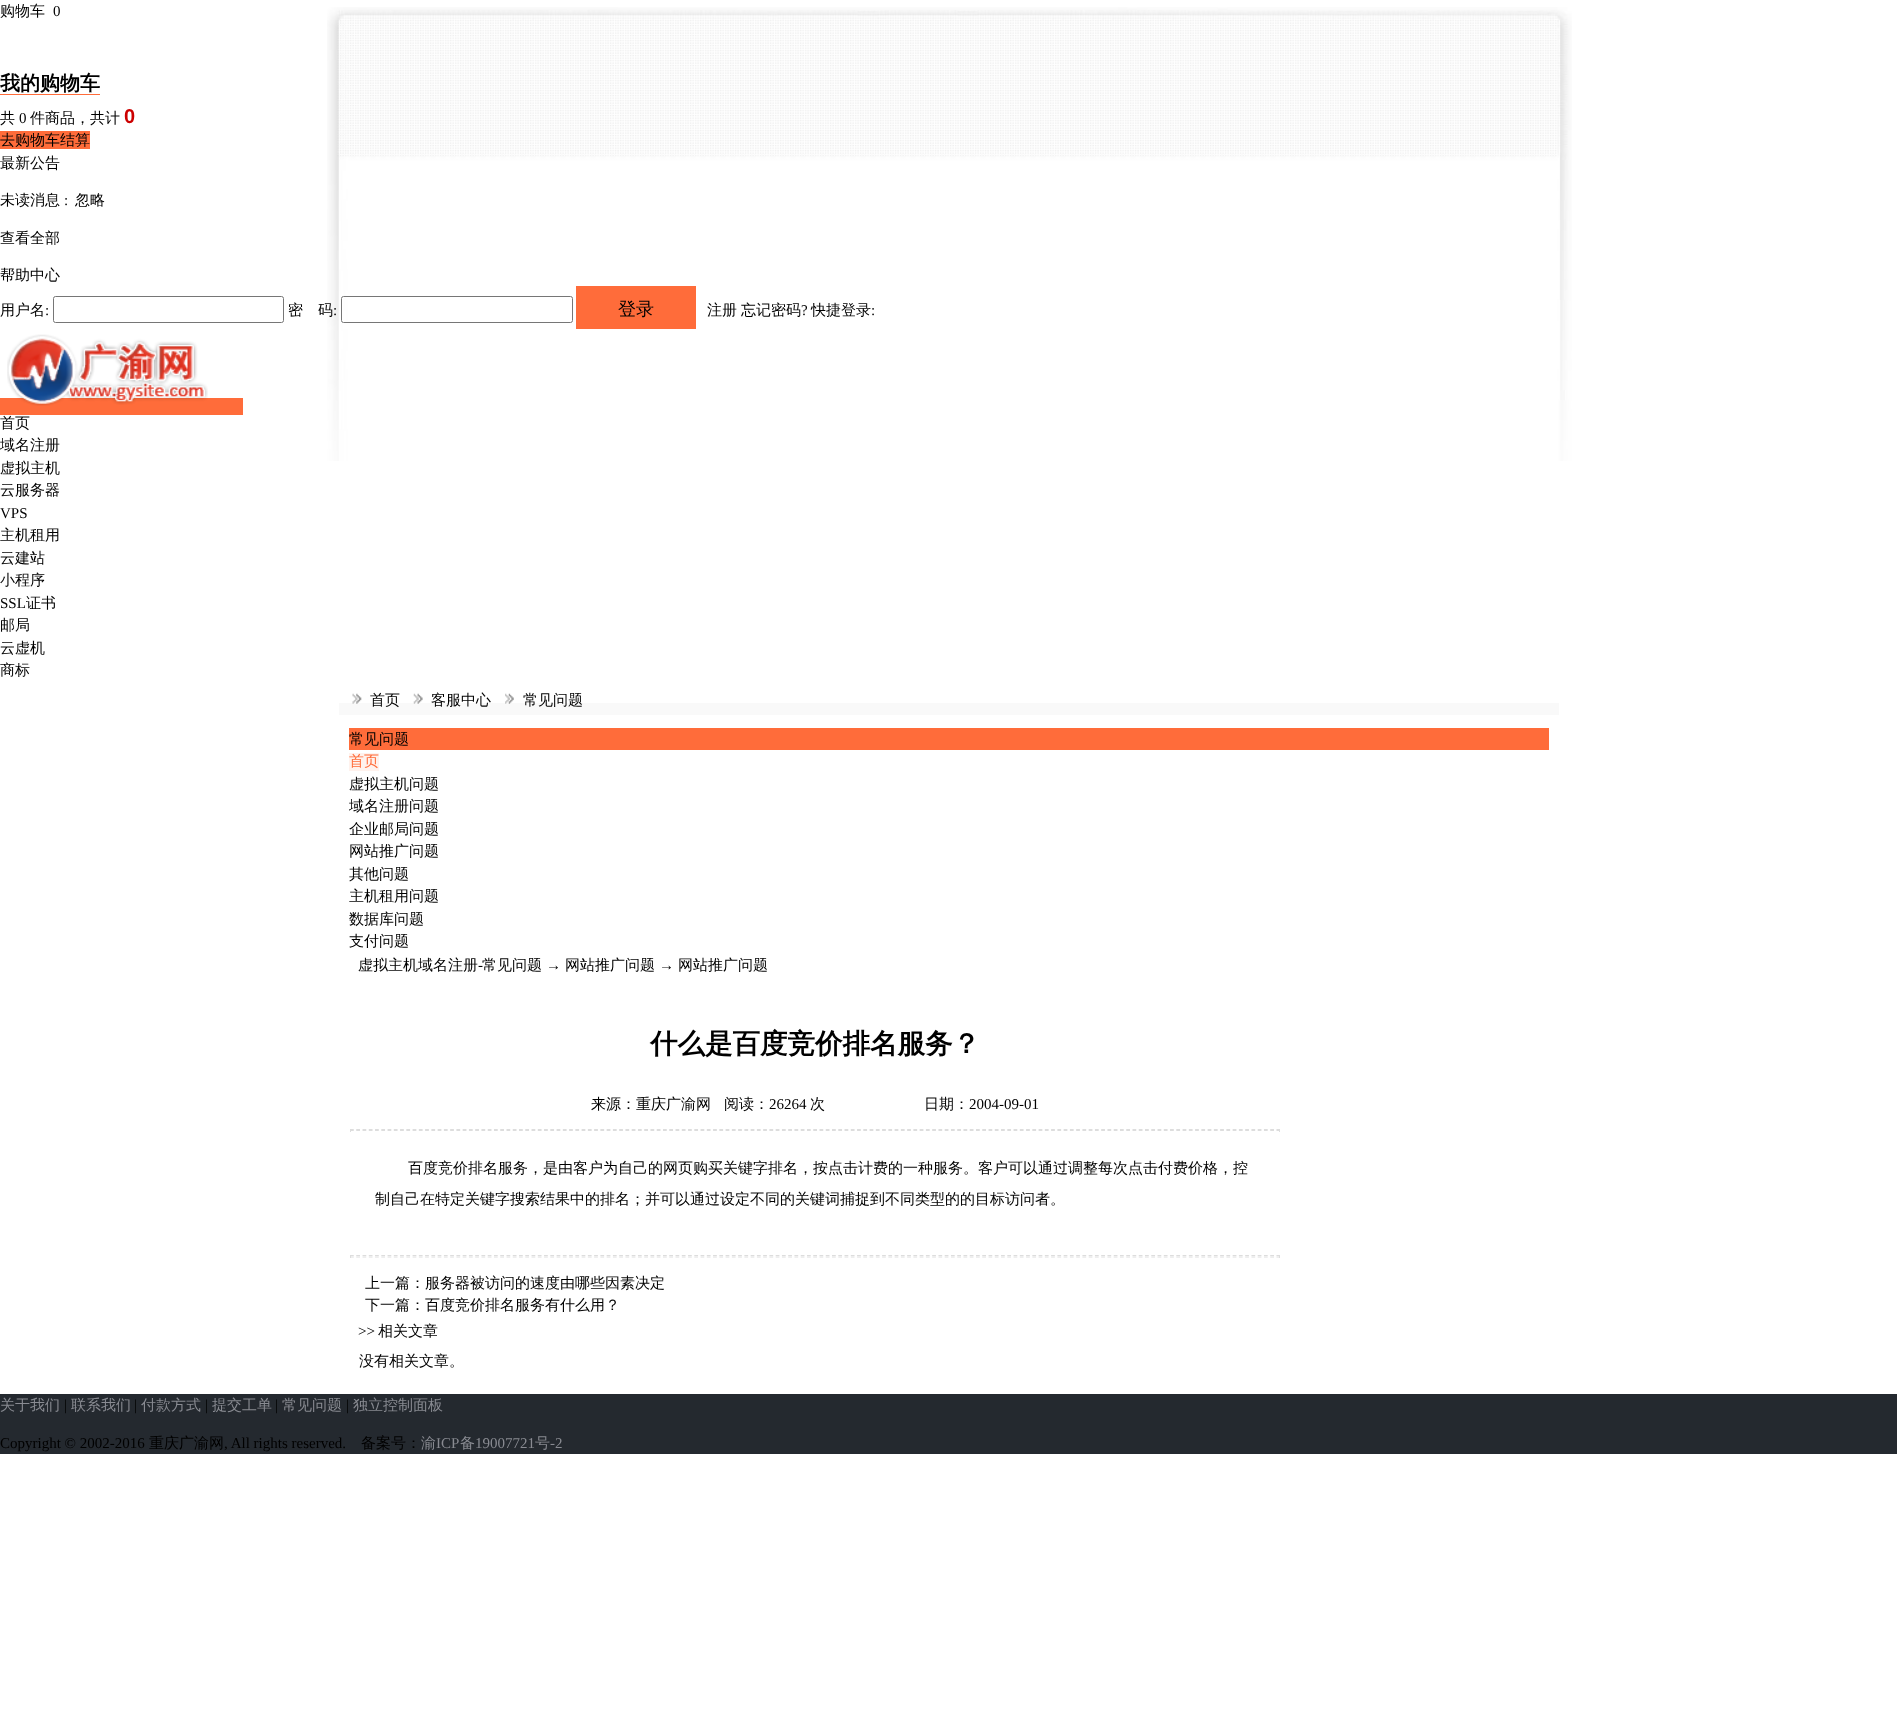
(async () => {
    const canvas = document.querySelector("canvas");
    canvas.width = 1897;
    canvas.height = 1722;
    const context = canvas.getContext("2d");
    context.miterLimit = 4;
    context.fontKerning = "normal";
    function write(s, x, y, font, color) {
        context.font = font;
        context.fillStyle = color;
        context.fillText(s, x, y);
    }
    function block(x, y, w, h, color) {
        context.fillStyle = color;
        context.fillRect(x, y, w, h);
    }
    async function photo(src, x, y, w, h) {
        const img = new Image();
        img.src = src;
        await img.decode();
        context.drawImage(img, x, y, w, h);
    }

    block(0, 0, 1897, 1722, "rgb(255, 255, 255)");
    await photo("media/1.png", 327, 7, 1245, 454);
    write("购物车", 0, 16, "500 15px WenQuanYi Zen Hei", "rgb(0, 0, 0)");
    write("0", 53, 16, "15px Liberation Serif", "rgb(0, 0, 0)");
    write("我的购物车", 0, 90, "bold 20px WenQuanYi Zen Hei", "rgb(0, 0, 0)");
    block(0, 94, 100, 1, "rgb(255, 108, 58)");
    write("共", 0, 123, "500 15px WenQuanYi Zen Hei", "rgb(0, 0, 0)");
    write("0", 19, 123, "15px Liberation Serif", "rgb(0, 0, 0)");
    write("件商品，共计", 30, 123, "500 15px WenQuanYi Zen Hei", "rgb(0, 0, 0)");
    write("0", 124, 123, "bold 20px Liberation Sans", "rgb(204, 0, 0)");
    block(0, 131, 90, 18, "rgb(255, 108, 58)");
    write("去购物车结算", 0, 145, "500 15px WenQuanYi Zen Hei", "rgb(0, 0, 0)");
    write("最新公告", 0, 168, "500 15px WenQuanYi Zen Hei", "rgb(0, 0, 0)");
    write("未读消息", 0, 205, "500 15px WenQuanYi Zen Hei", "rgb(0, 0, 0)");
    write(":", 64, 205, "15px Liberation Serif", "rgb(0, 0, 0)");
    write("忽略", 75, 205, "500 15px WenQuanYi Zen Hei", "rgb(0, 0, 0)");
    write("查看全部", 0, 243, "500 15px WenQuanYi Zen Hei", "rgb(0, 0, 0)");
    write("帮助中心", 0, 280, "500 15px WenQuanYi Zen Hei", "rgb(0, 0, 0)");
    write("用户名", 0, 315, "500 15px WenQuanYi Zen Hei", "rgb(0, 0, 0)");
    write(":", 45, 315, "15px Liberation Serif", "rgb(0, 0, 0)");
    context.beginPath();
    context.roundRect(53.5, 296.5, 230, 26, 2);
    context.strokeStyle = "rgb(118, 118, 118)";
    context.stroke();
    write("密　码", 288, 315, "500 15px WenQuanYi Zen Hei", "rgb(0, 0, 0)");
    write(":", 333, 315, "15px Liberation Serif", "rgb(0, 0, 0)");
    context.beginPath();
    context.roundRect(341.5, 296.5, 231, 26, 2);
    context.stroke();
    block(576, 286, 120, 43, "rgb(255, 108, 58)");
    write("登录", 618, 315, "500 18px WenQuanYi Zen Hei", "rgb(0, 0, 0)");
    write("注册", 707, 315, "500 15px WenQuanYi Zen Hei", "rgb(0, 0, 0)");
    write("忘记密码", 741, 315, "500 15px WenQuanYi Zen Hei", "rgb(0, 0, 0)");
    write("?", 801, 315, "15px Liberation Serif", "rgb(0, 0, 0)");
    write("快捷登录", 811, 315, "500 15px WenQuanYi Zen Hei", "rgb(0, 0, 0)");
    write(":", 871, 315, "15px Liberation Serif", "rgb(0, 0, 0)");
    block(0, 398, 243, 17, "rgb(255, 108, 58)");
    await photo("media/2.png", 7, 334, 201, 72);
    write("首页", 0, 428, "500 15px WenQuanYi Zen Hei", "rgb(0, 0, 0)");
    write("域名注册", 0, 450, "500 15px WenQuanYi Zen Hei", "rgb(0, 0, 0)");
    write("虚拟主机", 0, 473, "500 15px WenQuanYi Zen Hei", "rgb(0, 0, 0)");
    write("云服务器", 0, 495, "500 15px WenQuanYi Zen Hei", "rgb(0, 0, 0)");
    write("VPS", 0, 518, "15px Liberation Serif", "rgb(0, 0, 0)");
    write("主机租用", 0, 540, "500 15px WenQuanYi Zen Hei", "rgb(0, 0, 0)");
    write("云建站", 0, 563, "500 15px WenQuanYi Zen Hei", "rgb(0, 0, 0)");
    write("小程序", 0, 585, "500 15px WenQuanYi Zen Hei", "rgb(0, 0, 0)");
    write("SSL", 0, 608, "15px Liberation Serif", "rgb(0, 0, 0)");
    write("证书", 26, 608, "500 15px WenQuanYi Zen Hei", "rgb(0, 0, 0)");
    write("邮局", 0, 630, "500 15px WenQuanYi Zen Hei", "rgb(0, 0, 0)");
    write("云虚机", 0, 653, "500 15px WenQuanYi Zen Hei", "rgb(0, 0, 0)");
    write("商标", 0, 675, "500 15px WenQuanYi Zen Hei", "rgb(0, 0, 0)");
    block(339, 703, 1220, 12, "rgb(249, 249, 249)");
    await photo("media/3.png", 352, 693, 10, 11);
    write("首页", 370, 705, "500 15px WenQuanYi Zen Hei", "rgb(0, 0, 0)");
    await photo("media/4.png", 413, 693, 10, 11);
    write("客服中心", 431, 705, "500 15px WenQuanYi Zen Hei", "rgb(0, 0, 0)");
    await photo("media/5.png", 505, 693, 9, 11);
    write("常见问题", 523, 705, "500 15px WenQuanYi Zen Hei", "rgb(0, 0, 0)");
    block(349, 728, 1200, 22, "rgb(255, 108, 58)");
    write("常见问题", 349, 744, "500 15px WenQuanYi Zen Hei", "rgb(0, 0, 0)");
    block(349, 753, 30, 18, "rgb(255, 242, 237)");
    write("首页", 349, 766, "500 15px WenQuanYi Zen Hei", "rgb(255, 108, 58)");
    write("虚拟主机问题", 349, 789, "500 15px WenQuanYi Zen Hei", "rgb(0, 0, 0)");
    write("域名注册问题", 349, 811, "500 15px WenQuanYi Zen Hei", "rgb(0, 0, 0)");
    write("企业邮局问题", 349, 834, "500 15px WenQuanYi Zen Hei", "rgb(0, 0, 0)");
    write("网站推广问题", 349, 856, "500 15px WenQuanYi Zen Hei", "rgb(0, 0, 0)");
    write("其他问题", 349, 879, "500 15px WenQuanYi Zen Hei", "rgb(0, 0, 0)");
    write("主机租用问题", 349, 901, "500 15px WenQuanYi Zen Hei", "rgb(0, 0, 0)");
    write("数据库问题", 349, 924, "500 15px WenQuanYi Zen Hei", "rgb(0, 0, 0)");
    write("支付问题", 349, 946, "500 15px WenQuanYi Zen Hei", "rgb(0, 0, 0)");
    write("虚拟主机域名注册", 358, 970, "500 15px WenQuanYi Zen Hei", "rgb(0, 0, 0)");
    write("-", 478, 970, "15px Liberation Serif", "rgb(0, 0, 0)");
    write("常见问题", 482, 970, "500 15px WenQuanYi Zen Hei", "rgb(0, 0, 0)");
    write("→", 546, 970, "15px Liberation Serif", "rgb(0, 0, 0)");
    write("网站推广问题", 565, 970, "500 15px WenQuanYi Zen Hei", "rgb(0, 0, 0)");
    write("→", 659, 970, "15px Liberation Serif", "rgb(0, 0, 0)");
    write("网站推广问题", 678, 970, "500 15px WenQuanYi Zen Hei", "rgb(0, 0, 0)");
    write("什么是百度竞价排名服务？", 650, 1053, "bold 27.5px WenQuanYi Zen Hei", "rgb(0, 0, 0)");
    write("来源：重庆广渝网", 591, 1109, "500 15px WenQuanYi Zen Hei", "rgb(0, 0, 0)");
    write("阅读：", 724, 1109, "500 15px WenQuanYi Zen Hei", "rgb(0, 0, 0)");
    write("26264", 769, 1109, "15px Liberation Serif", "rgb(0, 0, 0)");
    write("次", 810, 1109, "500 15px WenQuanYi Zen Hei", "rgb(0, 0, 0)");
    write("日期：", 924, 1109, "500 15px WenQuanYi Zen Hei", "rgb(0, 0, 0)");
    write("2004-09-01", 969, 1109, "15px Liberation Serif", "rgb(0, 0, 0)");
    context.beginPath();
    context.moveTo(350, 1129.5);
    context.lineTo(1280, 1129.5);
    context.strokeStyle = "rgb(221, 221, 221)";
    context.lineWidth = 1.2;
    context.setLineDash([3.75, 2.51]);
    context.stroke();
    block(1279, 1129, 1, 3, "rgb(221, 221, 221)");
    context.beginPath();
    context.moveTo(350, 1130.5);
    context.lineTo(1280, 1130.5);
    context.stroke();
    block(350, 1129, 1, 3, "rgb(221, 221, 221)");
    write("百度竞价排名服务，是由客户为自己的网页购买关键字排名，按点击计费的一种服务。客户可以通过调整每次点击付费价格，控", 408, 1173, "500 15px WenQuanYi Zen Hei", "rgb(0, 0, 0)");
    write("制自己在特定关键字搜索结果中的排名；并可以通过设定不同的关键词捕捉到不同类型的的目标访问者。", 375, 1204, "500 15px WenQuanYi Zen Hei", "rgb(0, 0, 0)");
    context.beginPath();
    context.moveTo(350, 1255.5);
    context.lineTo(1280, 1255.5);
    context.stroke();
    block(1279, 1255, 1, 3, "rgb(221, 221, 221)");
    context.beginPath();
    context.moveTo(350, 1257);
    context.lineTo(1280, 1257);
    context.stroke();
    block(350, 1255, 1, 3, "rgb(221, 221, 221)");
    write("上一篇：服务器被访问的速度由哪些因素决定", 365, 1288, "500 15px WenQuanYi Zen Hei", "rgb(0, 0, 0)");
    write("下一篇：百度竞价排名服务有什么用？", 365, 1310, "500 15px WenQuanYi Zen Hei", "rgb(0, 0, 0)");
    write(">>", 358, 1336, "15px Liberation Serif", "rgb(0, 0, 0)");
    write("相关文章", 378, 1336, "500 15px WenQuanYi Zen Hei", "rgb(0, 0, 0)");
    write("没有相关文章。", 359, 1366, "500 15px WenQuanYi Zen Hei", "rgb(0, 0, 0)");
    block(0, 1394, 1897, 60, "rgb(36, 41, 47)");
    write("关于我们", 0, 1410, "500 15px WenQuanYi Zen Hei", "rgb(137, 139, 146)");
    write("|", 64, 1410, "15px Liberation Serif", "rgb(0, 0, 0)");
    write("联系我们", 71, 1410, "500 15px WenQuanYi Zen Hei", "rgb(137, 139, 146)");
    write("|", 134, 1410, "15px Liberation Serif", "rgb(0, 0, 0)");
    write("付款方式", 141, 1410, "500 15px WenQuanYi Zen Hei", "rgb(137, 139, 146)");
    write("|", 205, 1410, "15px Liberation Serif", "rgb(0, 0, 0)");
    write("提交工单", 212, 1410, "500 15px WenQuanYi Zen Hei", "rgb(137, 139, 146)");
    write("|", 275, 1410, "15px Liberation Serif", "rgb(0, 0, 0)");
    write("常见问题", 282, 1410, "500 15px WenQuanYi Zen Hei", "rgb(137, 139, 146)");
    write("|", 346, 1410, "15px Liberation Serif", "rgb(0, 0, 0)");
    write("独立控制面板", 353, 1410, "500 15px WenQuanYi Zen Hei", "rgb(137, 139, 146)");
    write("Copyright © 2002-2016", 0, 1448, "15px Liberation Serif", "rgb(0, 0, 0)");
    write("重庆广渝网", 149, 1448, "500 15px WenQuanYi Zen Hei", "rgb(0, 0, 0)");
    write(", All rights reserved.", 224, 1448, "15px Liberation Serif", "rgb(0, 0, 0)");
    write("备案号：", 361, 1448, "500 15px WenQuanYi Zen Hei", "rgb(0, 0, 0)");
    write("渝", 421, 1448, "500 15px WenQuanYi Zen Hei", "rgb(137, 139, 146)");
    write("ICP", 436, 1448, "15px Liberation Serif", "rgb(137, 139, 146)");
    write("备", 460, 1448, "500 15px WenQuanYi Zen Hei", "rgb(137, 139, 146)");
    write("19007721", 475, 1448, "15px Liberation Serif", "rgb(137, 139, 146)");
    write("号", 535, 1448, "500 15px WenQuanYi Zen Hei", "rgb(137, 139, 146)");
    write("-2", 550, 1448, "15px Liberation Serif", "rgb(137, 139, 146)");
})();
